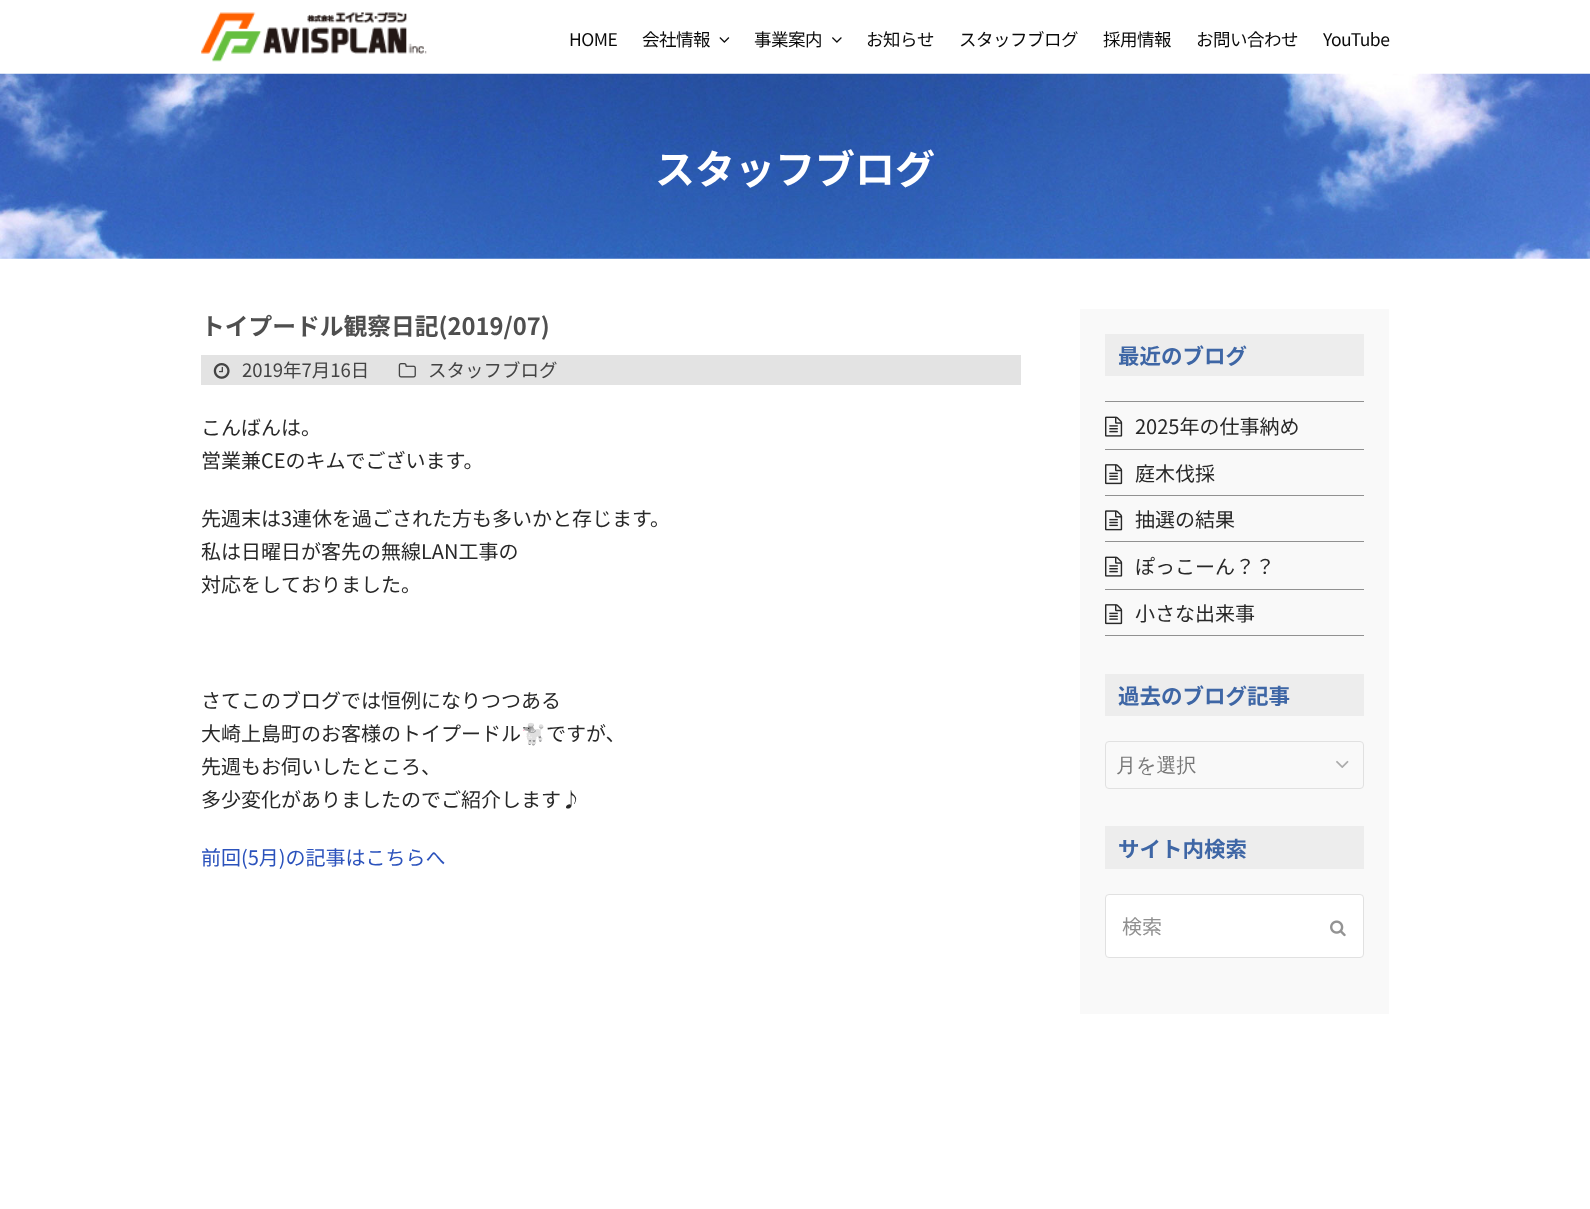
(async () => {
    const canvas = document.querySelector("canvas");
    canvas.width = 1590;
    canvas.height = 1209;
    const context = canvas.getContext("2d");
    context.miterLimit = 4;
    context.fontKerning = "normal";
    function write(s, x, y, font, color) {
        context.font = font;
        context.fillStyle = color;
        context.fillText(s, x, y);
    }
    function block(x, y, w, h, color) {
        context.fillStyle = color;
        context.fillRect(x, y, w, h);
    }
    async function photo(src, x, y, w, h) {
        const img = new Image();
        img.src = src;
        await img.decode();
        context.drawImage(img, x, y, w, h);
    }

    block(0, 0, 1590, 1209, "rgb(255, 255, 255)");
    await photo("media/1.png", 201, 12, 226, 50);
    context.letterSpacing = "-0.5px";
    write("HOME", 569, 46, "17.5px Noto Sans JP", "rgb(10, 10, 10)");
    write("会社情報", 642, 46, "17.5px Noto Sans JP", "rgb(10, 10, 10)");
    await photo("media/2.png", 719, 37, 11, 6);
    write("事業案内", 754, 46, "17.5px Noto Sans JP", "rgb(10, 10, 10)");
    await photo("media/3.png", 832, 37, 10, 6);
    write("お知らせ", 866, 46, "17.5px Noto Sans JP", "rgb(10, 10, 10)");
    write("スタッフブログ", 959, 46, "17.5px Noto Sans JP", "rgb(10, 10, 10)");
    write("採用情報", 1103, 46, "17.5px Noto Sans JP", "rgb(10, 10, 10)");
    write("お問い合わせ", 1196, 46, "17.5px Noto Sans JP", "rgb(10, 10, 10)");
    write("YouTube", 1323, 46, "17.5px Noto Sans JP", "rgb(10, 10, 10)");
    await photo("media/4.png", 0, 73, 1590, 186);
    context.letterSpacing = "0px";
    write("スタッフブログ", 655, 184, "bold 40px Noto Sans JP", "rgb(255, 255, 255)");
    write("トイプードル観察日記(2019/07)", 201, 335, "bold 23.75px Noto Sans JP", "rgb(79, 79, 79)");
    block(201, 355, 820, 30, "rgb(227, 227, 227)");
    await photo("media/5.png", 213, 363, 17, 16);
    write("2019年7月16日", 242, 377, "18.5px Noto Sans JP", "rgb(67, 67, 67)");
    await photo("media/6.png", 398, 363, 18, 15);
    write("スタッフブログ", 428, 377, "18.5px Noto Sans JP", "rgb(67, 67, 67)");
    write("こんばんは。", 201, 435, "20px Noto Sans JP", "rgb(40, 40, 40)");
    write("営業兼CEのキムでございます。", 201, 468, "20px Noto Sans JP", "rgb(40, 40, 40)");
    write("先週末は3連休を過ごされた方も多いかと存じます。", 201, 526, "20px Noto Sans JP", "rgb(40, 40, 40)");
    write("私は日曜日が客先の無線LAN工事の", 201, 559, "20px Noto Sans JP", "rgb(40, 40, 40)");
    write("対応をしておりました。", 201, 592, "20px Noto Sans JP", "rgb(40, 40, 40)");
    write("さてこのブログでは恒例になりつつある", 201, 708, "20px Noto Sans JP", "rgb(40, 40, 40)");
    write("大崎上島町のお客様のトイプードル", 201, 741, "20px Noto Sans JP", "rgb(40, 40, 40)");
    write("🐩", 521, 741, "20px Noto Color Emoji", "rgb(40, 40, 40)");
    write("ですが、", 546, 741, "20px Noto Sans JP", "rgb(40, 40, 40)");
    write("先週もお伺いしたところ、", 201, 774, "20px Noto Sans JP", "rgb(40, 40, 40)");
    write("多少変化がありましたのでご紹介します♪", 201, 807, "20px Noto Sans JP", "rgb(40, 40, 40)");
    write("前回(5月)の記事はこちらへ", 201, 865, "20px Noto Sans JP", "rgb(43, 82, 188)");
    block(1080, 309, 309, 705, "rgb(249, 249, 249)");
    block(1105, 334, 259, 42, "rgb(237, 237, 237)");
    write("最近のブログ", 1118, 364, "bold 21.5px Noto Sans JP", "rgb(62, 102, 165)");
    block(1105, 401, 259, 1, "rgb(145, 145, 145)");
    block(1105, 449, 259, 1, "rgb(145, 145, 145)");
    await photo("media/7.png", 1105, 416, 18, 21);
    write("2025年の仕事納め", 1135, 434, "20px Noto Sans JP", "rgb(40, 40, 40)");
    block(1105, 495, 259, 1, "rgb(145, 145, 145)");
    await photo("media/8.png", 1105, 464, 18, 21);
    write("庭木伐採", 1135, 481, "20px Noto Sans JP", "rgb(40, 40, 40)");
    block(1105, 541, 259, 1, "rgb(145, 145, 145)");
    await photo("media/9.png", 1105, 510, 18, 21);
    write("抽選の結果", 1135, 527, "20px Noto Sans JP", "rgb(40, 40, 40)");
    block(1105, 589, 259, 1, "rgb(145, 145, 145)");
    await photo("media/7.png", 1105, 556, 18, 21);
    write("ぽっこーん？？", 1135, 574, "20px Noto Sans JP", "rgb(40, 40, 40)");
    block(1105, 635, 259, 1, "rgb(145, 145, 145)");
    await photo("media/8.png", 1105, 604, 18, 21);
    write("小さな出来事", 1135, 621, "20px Noto Sans JP", "rgb(40, 40, 40)");
    block(1105, 674, 259, 42, "rgb(237, 237, 237)");
    write("過去のブログ記事", 1118, 704, "bold 21.5px Noto Sans JP", "rgb(62, 102, 165)");
    context.beginPath();
    context.roundRect(1105.5, 741.5, 258, 47, 3.5);
    context.strokeStyle = "rgb(225, 225, 225)";
    context.stroke();
    write("月を選択", 1116, 772, "500 20px WenQuanYi Zen Hei", "rgb(119, 119, 119)");
    await photo("media/10.png", 1336, 760, 13, 8);
    block(1105, 826, 259, 43, "rgb(237, 237, 237)");
    write("サイト内検索", 1118, 857, "bold 21.5px Noto Sans JP", "rgb(62, 102, 165)");
    context.fillStyle = "rgb(255, 255, 255)";
    context.beginPath();
    context.roundRect(1105.5, 894.5, 258, 63, 3.5);
    context.fill();
    context.stroke();
    write("検索", 1122, 934, "20px Noto Sans JP", "rgb(144, 144, 144)");
    await photo("media/11.png", 1330, 920, 16, 17);
})();
